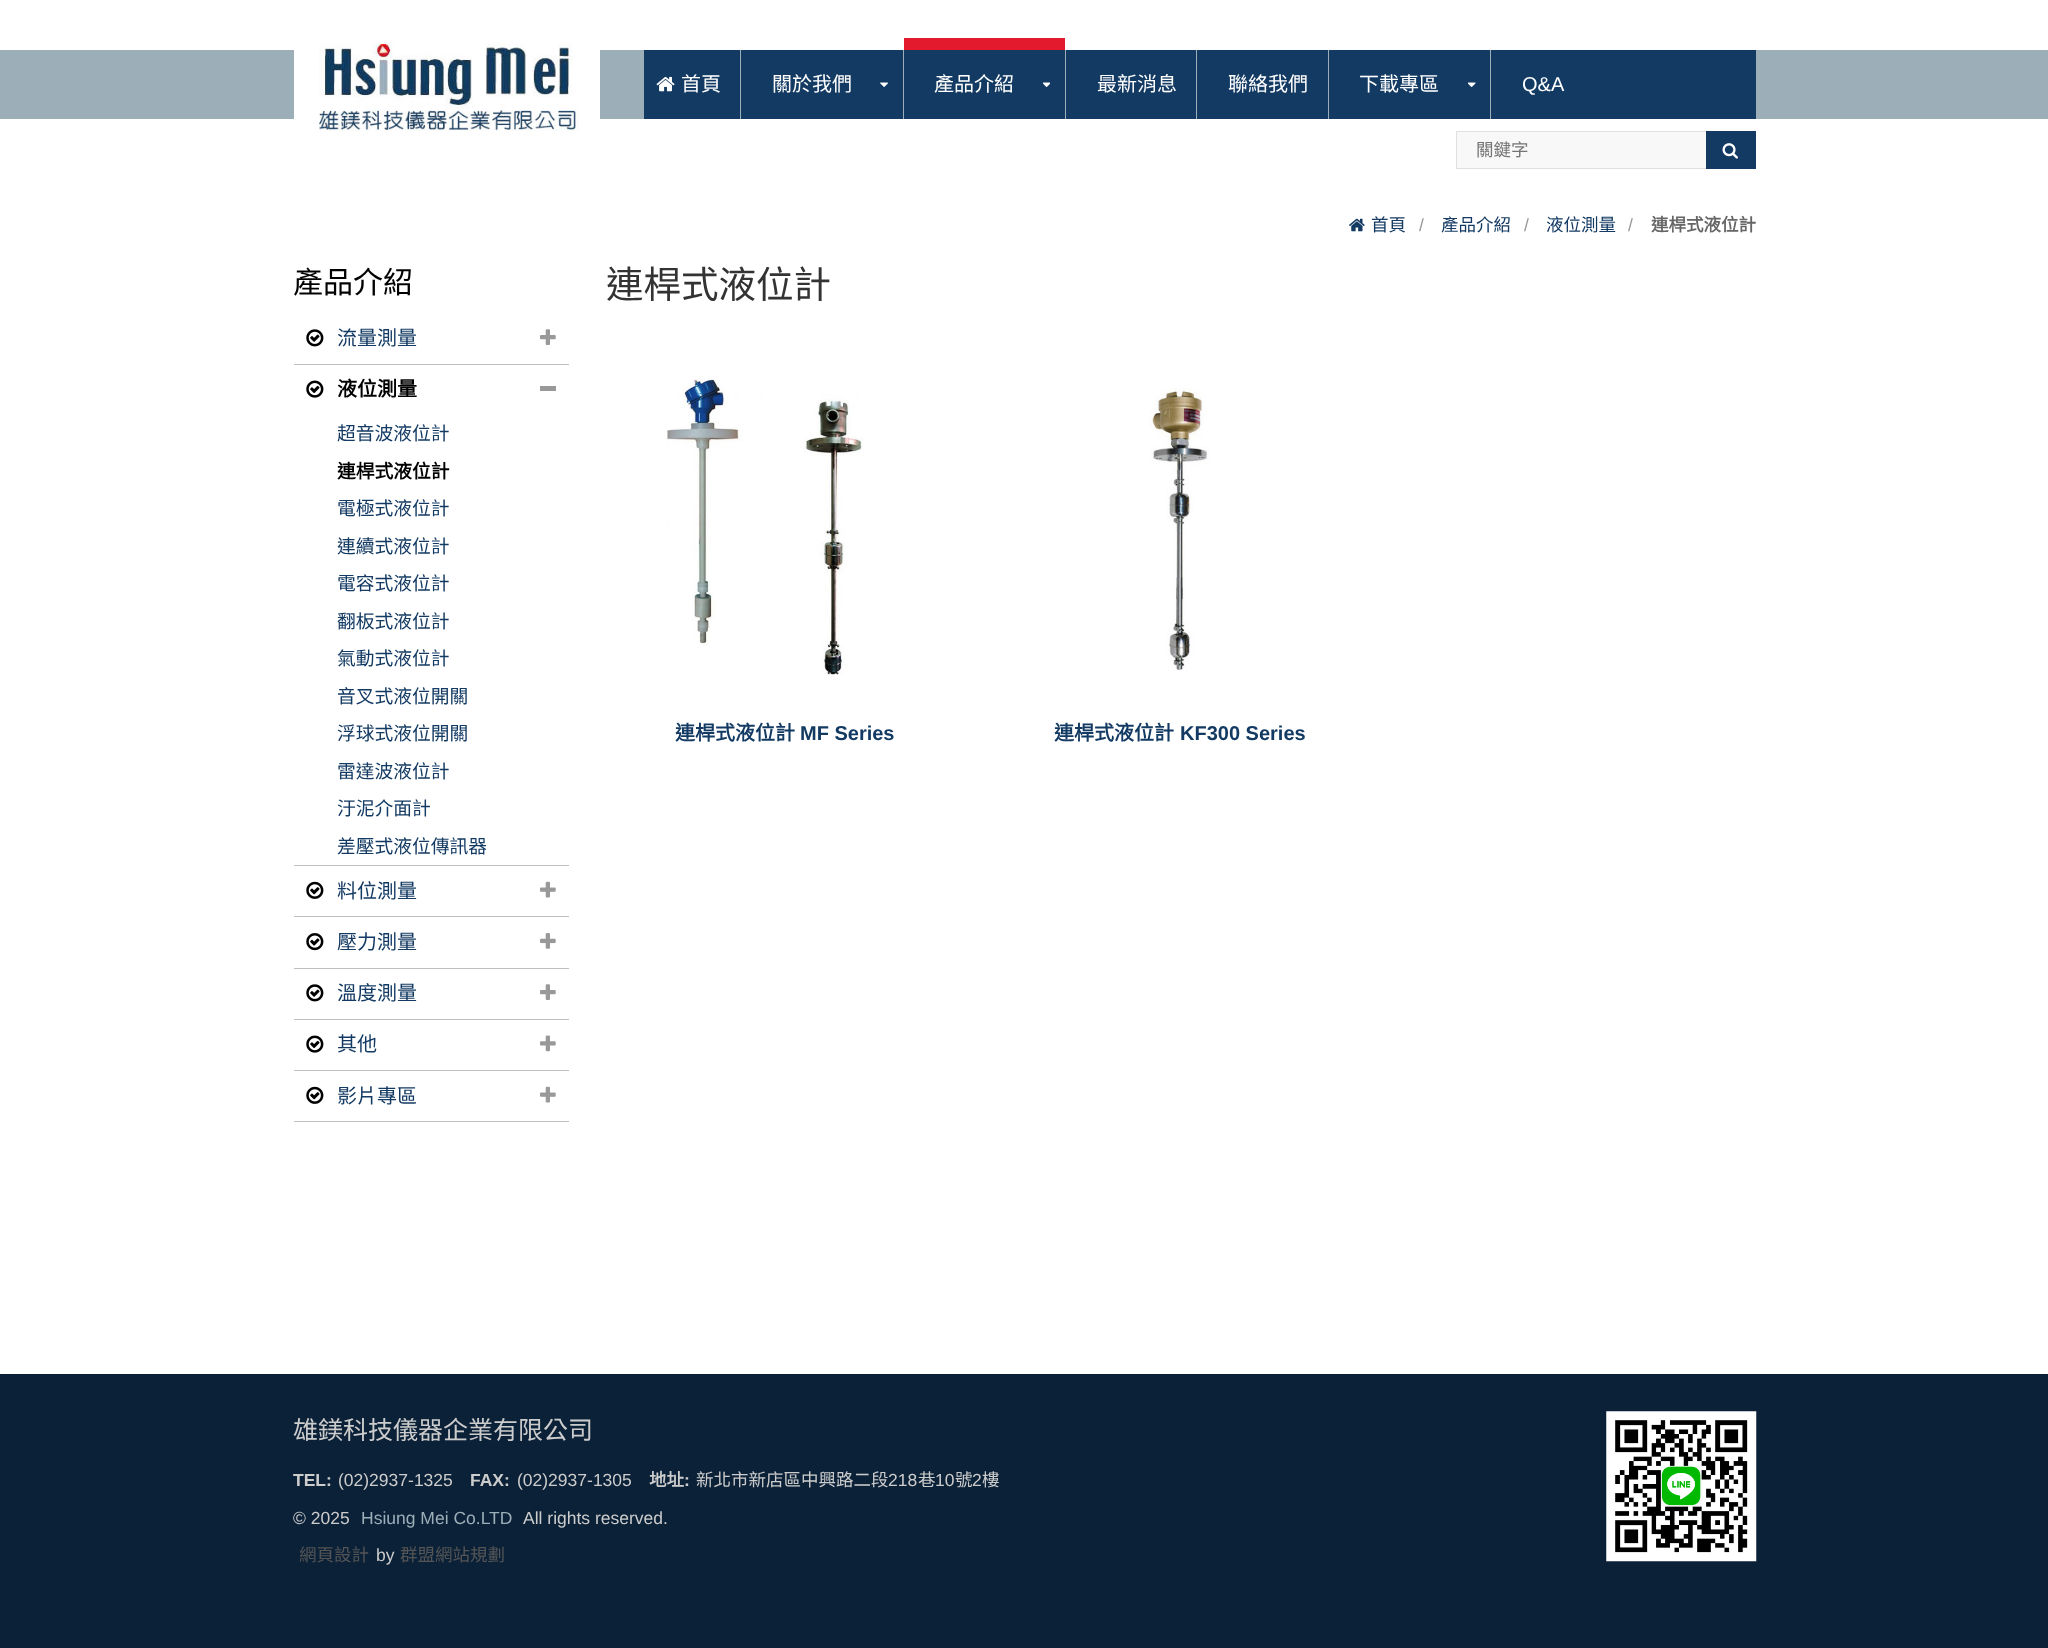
(async () => {
    const canvas = document.querySelector("canvas");
    canvas.width = 2048;
    canvas.height = 1648;
    const context = canvas.getContext("2d");
    context.miterLimit = 4;
    context.fontKerning = "normal";
    function write(s, x, y, font, color) {
        context.font = font;
        context.fillStyle = color;
        context.fillText(s, x, y);
    }
    function block(x, y, w, h, color) {
        context.fillStyle = color;
        context.fillRect(x, y, w, h);
    }
    async function photo(src, x, y, w, h) {
        const img = new Image();
        img.src = src;
        await img.decode();
        context.drawImage(img, x, y, w, h);
    }

    block(0, 0, 2048, 1648, "rgb(255, 255, 255)");
    block(0, 50, 2048, 69, "rgb(156, 174, 184)");
    block(294, 50, 306, 69, "rgb(255, 255, 255)");
    await photo("media/1.png", 319, 42, 260, 89);
    block(644, 50, 1112, 69, "rgb(19, 58, 99)");
    block(740, 50, 1, 69, "rgb(156, 174, 184)");
    await photo("media/2.png", 656, 76, 19, 16);
    write("首頁", 681, 91, "20px Noto Sans CJK TC", "rgb(255, 255, 255)");
    block(903, 50, 1, 69, "rgb(156, 174, 184)");
    write("關於我們", 772, 91, "20px Noto Sans CJK TC", "rgb(255, 255, 255)");
    await photo("media/3.png", 880, 82, 8, 5);
    block(1065, 50, 1, 69, "rgb(156, 174, 184)");
    block(904, 38, 161, 12, "rgb(227, 26, 45)");
    write("產品介紹", 934, 91, "20px Noto Sans CJK TC", "rgb(255, 255, 255)");
    await photo("media/4.png", 1043, 82, 7, 5);
    block(1196, 50, 1, 69, "rgb(156, 174, 184)");
    write("最新消息", 1097, 91, "20px Noto Sans CJK TC", "rgb(255, 255, 255)");
    block(1328, 50, 1, 69, "rgb(156, 174, 184)");
    write("聯絡我們", 1228, 91, "20px Noto Sans CJK TC", "rgb(255, 255, 255)");
    block(1490, 50, 1, 69, "rgb(156, 174, 184)");
    write("下載專區", 1359, 91, "20px Noto Sans CJK TC", "rgb(255, 255, 255)");
    await photo("media/5.png", 1468, 82, 8, 5);
    write("Q&A", 1522, 91, "20px Liberation Sans", "rgb(255, 255, 255)");
    block(1457, 132, 249, 36, "rgb(248, 248, 248)");
    context.strokeStyle = "rgb(224, 224, 224)";
    context.strokeRect(1456.5, 131.5, 299, 37);
    write("關鍵字", 1476, 156, "17.5px Noto Sans CJK TC", "rgb(117, 117, 117)");
    block(1706, 131, 50, 38, "rgb(19, 58, 99)");
    await photo("media/6.png", 1722, 143, 16, 16);
    await photo("media/7.png", 1349, 218, 16, 14);
    write("首頁", 1371, 231, "17.5px Noto Sans CJK TC", "rgb(19, 58, 99)");
    write("/", 1419, 231, "17.5px Liberation Sans", "rgb(153, 153, 153)");
    write("產品介紹", 1441, 231, "17.5px Noto Sans CJK TC", "rgb(19, 58, 99)");
    write("/", 1524, 231, "17.5px Liberation Sans", "rgb(153, 153, 153)");
    write("液位測量", 1546, 231, "17.5px Noto Sans CJK TC", "rgb(19, 58, 99)");
    write("/", 1628, 231, "17.5px Liberation Sans", "rgb(153, 153, 153)");
    write("連桿式液位計", 1651, 231, "bold 17.5px Noto Sans CJK TC", "rgb(102, 102, 102)");
    write("產品介紹", 293, 293, "30px Noto Sans CJK TC", "rgb(0, 0, 0)");
    block(294, 364, 275, 1, "rgb(190, 190, 190)");
    await photo("media/8.png", 306, 329, 18, 18);
    write("流量測量", 337, 345, "20px Noto Sans CJK TC", "rgb(19, 58, 99)");
    await photo("media/9.png", 540, 329, 16, 16);
    block(294, 865, 275, 1, "rgb(190, 190, 190)");
    await photo("media/10.png", 306, 380, 18, 18);
    write("液位測量", 337, 396, "bold 20px Noto Sans CJK TC", "rgb(0, 0, 0)");
    block(540, 386, 16, 5, "rgb(153, 153, 153)");
    write("超音波液位計", 337, 440, "18.75px Noto Sans CJK TC", "rgb(19, 58, 99)");
    write("連桿式液位計", 337, 478, "bold 18.75px Noto Sans CJK TC", "rgb(0, 0, 0)");
    write("電極式液位計", 337, 515, "18.75px Noto Sans CJK TC", "rgb(19, 58, 99)");
    write("連續式液位計", 337, 553, "18.75px Noto Sans CJK TC", "rgb(19, 58, 99)");
    write("電容式液位計", 337, 590, "18.75px Noto Sans CJK TC", "rgb(19, 58, 99)");
    write("翻板式液位計", 337, 628, "18.75px Noto Sans CJK TC", "rgb(19, 58, 99)");
    write("氣動式液位計", 337, 665, "18.75px Noto Sans CJK TC", "rgb(19, 58, 99)");
    write("音叉式液位開關", 337, 703, "18.75px Noto Sans CJK TC", "rgb(19, 58, 99)");
    write("浮球式液位開關", 337, 740, "18.75px Noto Sans CJK TC", "rgb(19, 58, 99)");
    write("雷達波液位計", 337, 778, "18.75px Noto Sans CJK TC", "rgb(19, 58, 99)");
    write("汙泥介面計", 337, 815, "18.75px Noto Sans CJK TC", "rgb(19, 58, 99)");
    write("差壓式液位傳訊器", 337, 853, "18.75px Noto Sans CJK TC", "rgb(19, 58, 99)");
    block(294, 916, 275, 1, "rgb(190, 190, 190)");
    await photo("media/11.png", 306, 881, 18, 18);
    write("料位測量", 337, 898, "20px Noto Sans CJK TC", "rgb(19, 58, 99)");
    await photo("media/12.png", 540, 881, 16, 17);
    block(294, 968, 275, 1, "rgb(190, 190, 190)");
    await photo("media/13.png", 306, 933, 18, 18);
    write("壓力測量", 337, 949, "20px Noto Sans CJK TC", "rgb(19, 58, 99)");
    await photo("media/14.png", 540, 933, 16, 16);
    block(294, 1019, 275, 1, "rgb(190, 190, 190)");
    await photo("media/8.png", 306, 984, 18, 18);
    write("溫度測量", 337, 1000, "20px Noto Sans CJK TC", "rgb(19, 58, 99)");
    await photo("media/9.png", 540, 984, 16, 16);
    block(294, 1070, 275, 1, "rgb(190, 190, 190)");
    await photo("media/10.png", 306, 1035, 18, 18);
    write("其他", 337, 1051, "20px Noto Sans CJK TC", "rgb(19, 58, 99)");
    await photo("media/15.png", 540, 1035, 16, 17);
    block(294, 1121, 275, 1, "rgb(190, 190, 190)");
    await photo("media/11.png", 306, 1086, 18, 18);
    write("影片專區", 337, 1103, "20px Noto Sans CJK TC", "rgb(19, 58, 99)");
    await photo("media/12.png", 540, 1086, 16, 17);
    write("連桿式液位計", 606, 298, "37.5px Noto Sans CJK TC", "rgb(51, 51, 51)");
    await photo("media/16.png", 666, 379, 198, 296);
    write("連桿式液位計", 675, 740, "bold 20px Noto Sans CJK TC", "rgb(19, 58, 99)");
    write("MF Series", 800, 740, "bold 20px Liberation Sans", "rgb(19, 58, 99)");
    await photo("media/17.png", 1149, 388, 60, 283);
    write("連桿式液位計", 1054, 740, "bold 20px Noto Sans CJK TC", "rgb(19, 58, 99)");
    write("KF300 Series", 1180, 740, "bold 20px Liberation Sans", "rgb(19, 58, 99)");
    block(0, 1374, 2048, 274, "rgb(11, 33, 56)");
    write("雄鎂科技儀器企業有限公司", 293, 1439, "25px Noto Sans CJK TC", "rgb(204, 204, 204)");
    await photo("media/18.png", 1606, 1411, 151, 151);
    write("TEL:", 293, 1486, "bold 17.5px Liberation Sans", "rgb(204, 204, 204)");
    write("(02)2937-1325", 338, 1486, "17.5px Liberation Sans", "rgb(204, 204, 204)");
    write("FAX:", 470, 1486, "bold 17.5px Liberation Sans", "rgb(204, 204, 204)");
    write("(02)2937-1305", 517, 1486, "17.5px Liberation Sans", "rgb(204, 204, 204)");
    write("地址", 649, 1486, "bold 17.5px Noto Sans CJK TC", "rgb(204, 204, 204)");
    write(":", 684, 1486, "bold 17.5px Liberation Sans", "rgb(204, 204, 204)");
    write("新北市新店區中興路二段", 696, 1486, "17.5px Noto Sans CJK TC", "rgb(204, 204, 204)");
    write("218", 888, 1486, "17.5px Liberation Sans", "rgb(204, 204, 204)");
    write("巷", 918, 1486, "17.5px Noto Sans CJK TC", "rgb(204, 204, 204)");
    write("10", 935, 1486, "17.5px Liberation Sans", "rgb(204, 204, 204)");
    write("號", 955, 1486, "17.5px Noto Sans CJK TC", "rgb(204, 204, 204)");
    write("2", 972, 1486, "17.5px Liberation Sans", "rgb(204, 204, 204)");
    write("樓", 982, 1486, "17.5px Noto Sans CJK TC", "rgb(204, 204, 204)");
    write("© 2025", 293, 1524, "17.5px Liberation Sans", "rgb(204, 204, 204)");
    write("Hsiung Mei Co.LTD", 361, 1524, "17.5px Liberation Sans", "rgb(156, 174, 184)");
    write("All rights reserved.", 523, 1524, "17.5px Liberation Sans", "rgb(204, 204, 204)");
    write("網頁設計", 299, 1561, "17.5px Noto Sans CJK TC", "rgb(85, 85, 85)");
    write("by", 376, 1561, "17.5px Liberation Sans", "rgb(204, 204, 204)");
    write("群盟網站規劃", 400, 1561, "17.5px Noto Sans CJK TC", "rgb(85, 85, 85)");
})();
